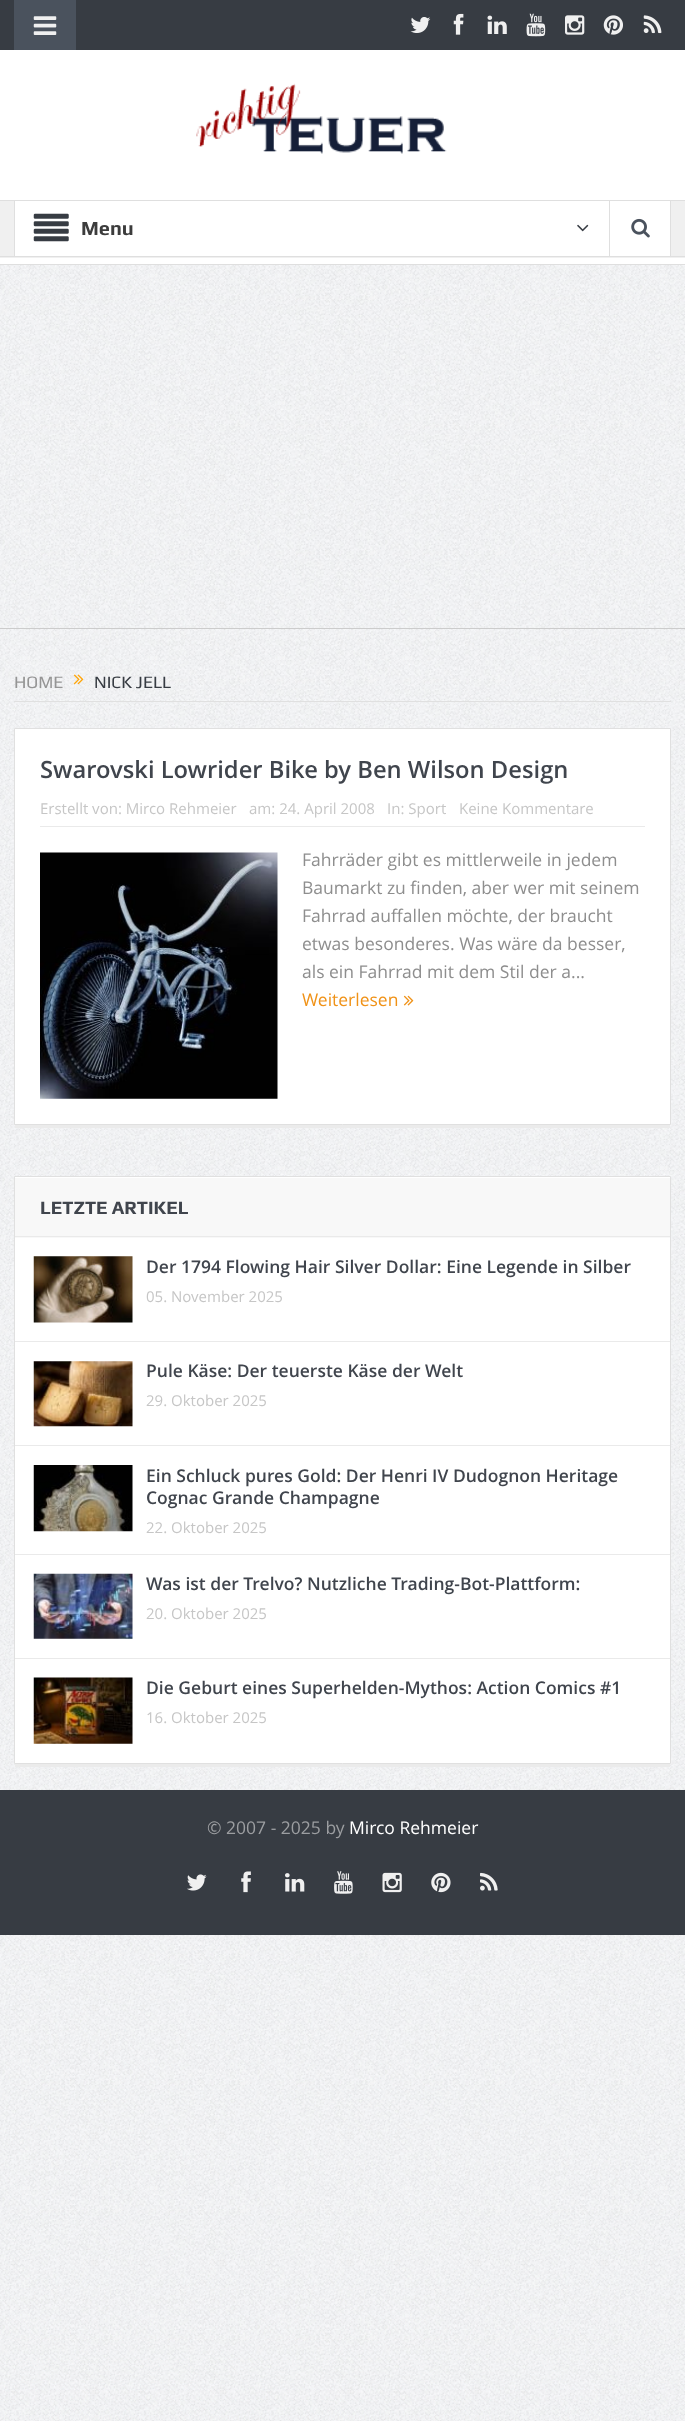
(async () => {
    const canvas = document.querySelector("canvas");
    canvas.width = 685;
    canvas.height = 2421;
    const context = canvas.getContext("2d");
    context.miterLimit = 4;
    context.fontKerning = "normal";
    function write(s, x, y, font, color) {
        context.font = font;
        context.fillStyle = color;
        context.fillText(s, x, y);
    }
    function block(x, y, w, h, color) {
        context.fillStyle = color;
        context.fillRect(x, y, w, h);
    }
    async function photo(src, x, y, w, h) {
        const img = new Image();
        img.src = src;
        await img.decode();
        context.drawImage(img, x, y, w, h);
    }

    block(0, 0, 685, 2421, "rgb(255, 255, 255)");
    await photo("media/1.png", 0, 265, 685, 2156);
    block(0, 0, 685, 50, "rgb(55, 60, 67)");
    block(14, 0, 62, 50, "rgb(74, 82, 93)");
    await photo("media/2.png", 33, 16, 24, 19);
    await photo("media/3.png", 410, 17, 21, 16);
    await photo("media/4.png", 453, 13, 11, 22);
    await photo("media/5.png", 487, 15, 20, 19);
    await photo("media/6.png", 526, 13, 20, 24);
    await photo("media/7.png", 565, 15, 20, 20);
    await photo("media/8.png", 603, 15, 20, 20);
    await photo("media/9.png", 643, 15, 19, 19);
    await photo("media/10.png", 196, 83, 251, 71);
    block(0, 200, 685, 1, "rgb(223, 223, 223)");
    block(0, 264, 685, 1, "rgb(223, 223, 223)");
    block(0, 201, 685, 57, "rgb(240, 240, 240)");
    block(0, 256, 685, 1, "rgb(223, 223, 223)");
    block(15, 201, 594, 55, "rgb(255, 255, 255)");
    block(14, 201, 1, 55, "rgb(223, 223, 223)");
    await photo("media/11.png", 33, 213, 36, 29);
    write("Menu", 81, 235, "bold 20px Play", "rgb(60, 60, 60)");
    await photo("media/12.png", 577, 224, 12, 8);
    block(610, 201, 60, 55, "rgb(255, 255, 255)");
    block(670, 201, 1, 55, "rgb(223, 223, 223)");
    block(609, 201, 1, 55, "rgb(223, 223, 223)");
    await photo("media/13.png", 631, 218, 19, 20);
    block(0, 628, 685, 1, "rgb(204, 204, 204)");
    block(14, 701, 657, 1, "rgb(224, 224, 224)");
    write("HOME", 14, 688, "17.5px Play", "rgb(149, 149, 149)");
    await photo("media/14.png", 73, 674, 11, 11);
    write("NICK JELL", 94, 688, "17.5px Play", "rgb(55, 60, 67)");
    context.fillStyle = "rgb(255, 255, 255)";
    context.beginPath();
    context.rect(14.5, 728.5, 656, 396);
    context.fill();
    context.strokeStyle = "rgb(224, 224, 224)";
    context.stroke();
    block(40, 826, 605, 1, "rgb(234, 234, 234)");
    write("Swarovski Lowrider Bike by Ben Wilson Design", 40, 778, "600 23.75px Open Sans", "rgb(64, 69, 77)");
    write("Erstellt von: Mirco Rehmeier", 40, 814, "15px Open Sans", "rgb(198, 198, 198)");
    write("am: 24. April 2008", 249, 814, "15px Open Sans", "rgb(198, 198, 198)");
    write("In: Sport", 387, 814, "15px Open Sans", "rgb(198, 198, 198)");
    write("Keine Kommentare", 459, 814, "15px Open Sans", "rgb(198, 198, 198)");
    await photo("media/15.png", 40, 852, 238, 247);
    write("Fahrräder gibt es mittlerweile in jedem", 302, 866, "17.5px Open Sans", "rgb(142, 142, 142)");
    write("Baumarkt zu finden, aber wer mit seinem", 302, 894, "17.5px Open Sans", "rgb(142, 142, 142)");
    write("Fahrrad auffallen möchte, der braucht", 302, 922, "17.5px Open Sans", "rgb(142, 142, 142)");
    write("etwas besonderes. Was wäre da besser,", 302, 950, "17.5px Open Sans", "rgb(142, 142, 142)");
    write("als ein Fahrrad mit dem Stil der a...", 302, 978, "17.5px Open Sans", "rgb(142, 142, 142)");
    write("Weiterlesen", 302, 1006, "17.5px Open Sans", "rgb(240, 146, 23)");
    await photo("media/16.png", 403, 995, 11, 11);
    block(15, 1125, 655, 3, "rgb(235, 235, 235)");
    context.fillStyle = "rgb(255, 255, 255)";
    context.beginPath();
    context.rect(14.5, 1176.5, 656, 587);
    context.fill();
    context.stroke();
    block(15, 1178, 655, 60, "rgb(248, 248, 248)");
    block(15, 1236, 655, 1, "rgb(234, 234, 234)");
    write("LETZTE ARTIKEL", 40, 1214, "bold 18.75px Play", "rgb(64, 69, 77)");
    block(15, 1341, 655, 1, "rgb(234, 234, 234)");
    await photo("media/17.png", 33, 1256, 100, 67);
    write("Der 1794 Flowing Hair Silver Dollar: Eine Legende in Silber", 146, 1273, "600 17.5px Open Sans", "rgb(64, 69, 77)");
    write("05. November 2025", 146, 1302, "15px Open Sans", "rgb(198, 198, 198)");
    block(15, 1445, 655, 1, "rgb(234, 234, 234)");
    await photo("media/18.png", 33, 1361, 100, 66);
    write("Pule Käse: Der teuerste Käse der Welt", 146, 1377, "600 17.5px Open Sans", "rgb(64, 69, 77)");
    write("29. Oktober 2025", 146, 1406, "15px Open Sans", "rgb(198, 198, 198)");
    block(15, 1554, 655, 1, "rgb(234, 234, 234)");
    await photo("media/19.png", 33, 1465, 100, 67);
    write("Ein Schluck pures Gold: Der Henri IV Dudognon Heritage", 146, 1482, "600 17.5px Open Sans", "rgb(64, 69, 77)");
    write("Cognac Grande Champagne", 146, 1504, "600 17.5px Open Sans", "rgb(64, 69, 77)");
    write("22. Oktober 2025", 146, 1533, "15px Open Sans", "rgb(198, 198, 198)");
    block(15, 1658, 655, 1, "rgb(234, 234, 234)");
    await photo("media/20.png", 33, 1573, 100, 66);
    write("Was ist der Trelvo? Nutzliche Trading-Bot-Plattform:", 146, 1590, "600 17.5px Open Sans", "rgb(64, 69, 77)");
    write("20. Oktober 2025", 146, 1619, "15px Open Sans", "rgb(198, 198, 198)");
    await photo("media/21.png", 33, 1677, 100, 67);
    write("Die Geburt eines Superhelden-Mythos: Action Comics #1", 146, 1694, "600 17.5px Open Sans", "rgb(64, 69, 77)");
    write("16. Oktober 2025", 146, 1723, "15px Open Sans", "rgb(198, 198, 198)");
    block(15, 1764, 655, 3, "rgb(235, 235, 235)");
    block(0, 1790, 685, 145, "rgb(55, 60, 67)");
    write("© 2007 - 2025 by", 207, 1834, "17.5px Open Sans", "rgb(156, 158, 161)");
    write("Mirco Rehmeier", 349, 1834, "17.5px Open Sans", "rgb(255, 255, 255)");
    await photo("media/22.png", 187, 1874, 20, 17);
    await photo("media/23.png", 241, 1871, 10, 22);
    await photo("media/24.png", 285, 1873, 20, 19);
    await photo("media/25.png", 334, 1871, 19, 23);
    await photo("media/26.png", 382, 1872, 20, 21);
    await photo("media/27.png", 431, 1872, 20, 21);
    await photo("media/28.png", 480, 1872, 18, 19);
})();
